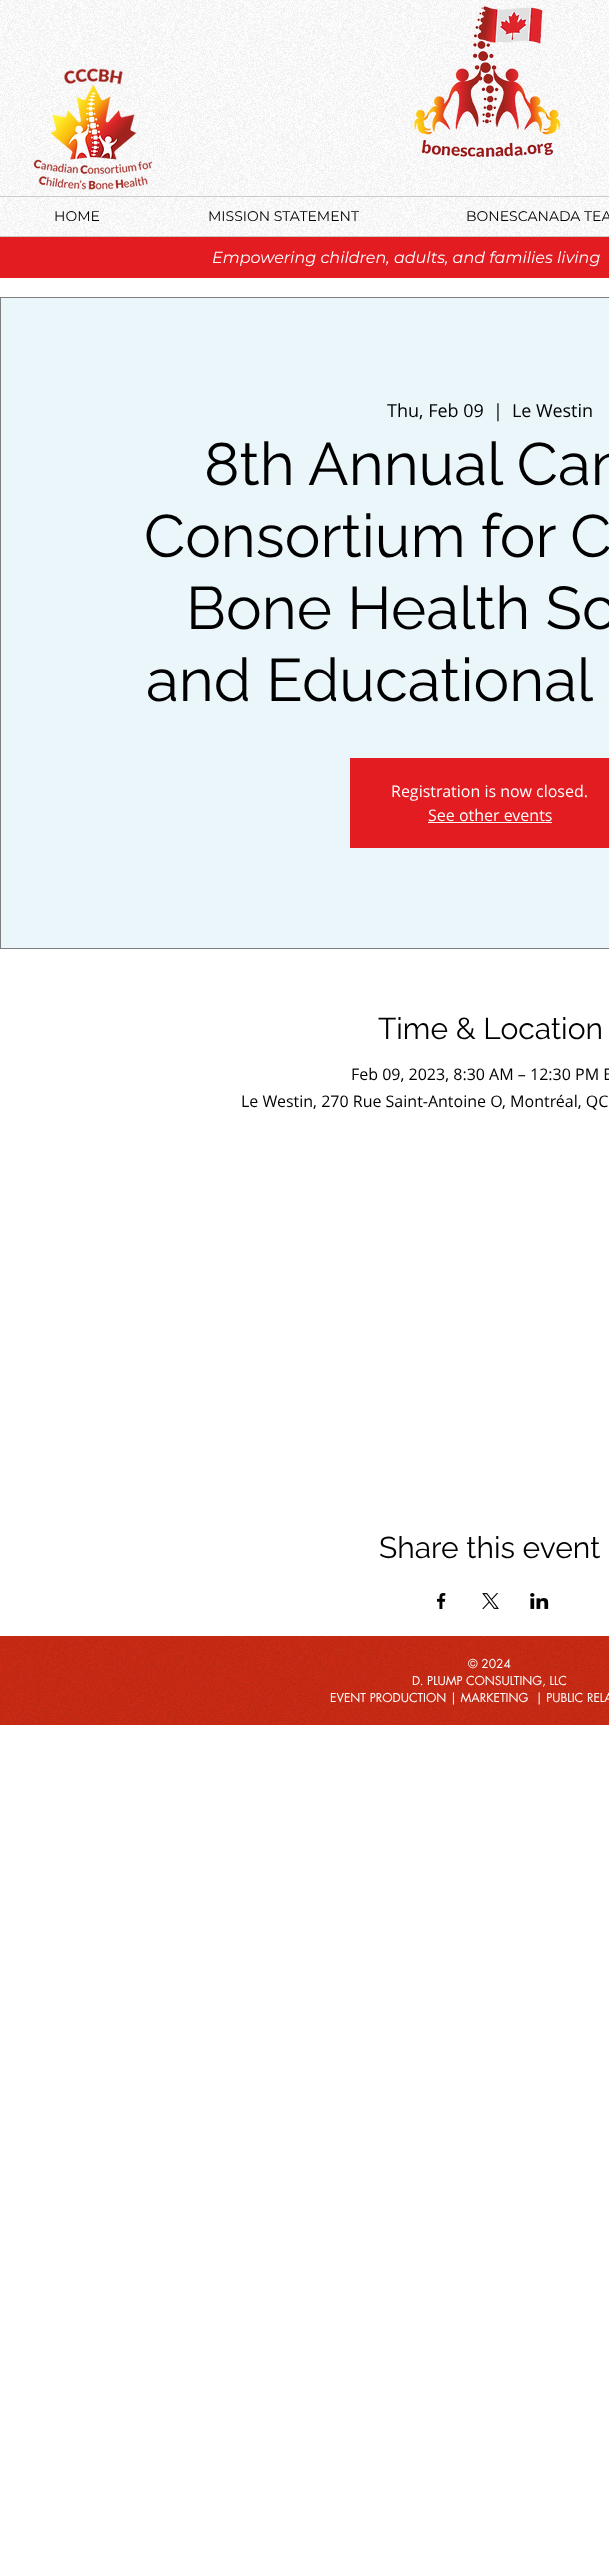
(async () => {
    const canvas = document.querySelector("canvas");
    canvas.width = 609;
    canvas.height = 2572;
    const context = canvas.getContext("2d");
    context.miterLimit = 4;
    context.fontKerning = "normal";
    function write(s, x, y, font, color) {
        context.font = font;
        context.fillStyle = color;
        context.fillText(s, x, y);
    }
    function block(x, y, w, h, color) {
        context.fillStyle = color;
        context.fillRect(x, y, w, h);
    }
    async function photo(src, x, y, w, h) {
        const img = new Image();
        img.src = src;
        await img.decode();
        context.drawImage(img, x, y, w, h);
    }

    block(0, 0, 609, 2572, "rgb(255, 255, 255)");
    await photo("media/1.png", 0, 0, 609, 236);
    await photo("media/2.png", 33, 68, 120, 122);
    await photo("media/3.png", 414, 6, 147, 151);
    block(0, 196, 609, 1, "rgb(202, 202, 202)");
    block(0, 236, 609, 1, "rgb(202, 202, 202)");
    write("HOME", 54, 221, "14px Montserrat", "rgb(0, 0, 0)");
    write("MISSION STATEMENT", 208, 221, "14px Montserrat", "rgb(0, 0, 0)");
    write("BONESCANADA TEA", 466, 221, "14px Montserrat", "rgb(0, 0, 0)");
    block(0, 237, 609, 41, "rgb(226, 28, 33)");
    write("Empowering children, adults, and families living", 212, 263, "italic 16px Montserrat", "rgb(255, 255, 255)");
    context.strokeStyle = "rgb(125, 125, 125)";
    context.strokeRect(0.5, 297.5, 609, 651);
    block(1, 298, 608, 650, "rgb(234, 246, 250)");
    write("Thu, Feb 09", 387, 417, "18px Open Sans", "rgb(0, 0, 0)");
    write("|", 493, 417, "18px Open Sans", "rgb(0, 0, 0)");
    write("Le Westin", 512, 417, "18px Open Sans", "rgb(0, 0, 0)");
    write("8th Annual Can", 204, 485, "60px Raleway", "rgb(0, 0, 0)");
    write("Consortium for C", 144, 557, "60px Raleway", "rgb(0, 0, 0)");
    write("Bone Health Sc", 186, 629, "60px Raleway", "rgb(0, 0, 0)");
    write("and Educational", 146, 701, "60px Raleway", "rgb(0, 0, 0)");
    block(350, 758, 259, 90, "rgb(226, 28, 33)");
    write("Registration is now closed.", 391, 797, "16px Open Sans", "rgb(255, 255, 255)");
    write("See other events", 428, 821, "16px Open Sans", "rgb(255, 255, 255)");
    block(428, 822, 124, 1, "rgb(255, 255, 255)");
    write("Time & Location", 378, 1039, "30px Raleway", "rgb(0, 0, 0)");
    write("Feb 09, 2023, 8:30 AM – 12:30 PM E", 351, 1080, "16px Open Sans", "rgb(0, 0, 0)");
    write("Le Westin, 270 Rue Saint-Antoine O, Montréal, QC", 241, 1107, "16px Open Sans", "rgb(0, 0, 0)");
    write("Share this event", 379, 1558, "30px Raleway", "rgb(0, 0, 0)");
    await photo("media/4.png", 437, 1593, 9, 16);
    await photo("media/5.png", 482, 1593, 17, 16);
    await photo("media/6.png", 530, 1593, 19, 16);
    block(0, 1636, 609, 89, "rgb(202, 41, 19)");
    await photo("media/7.png", 0, 1636, 609, 89);
    write("© 2024", 468, 1668, "12px futura", "rgb(255, 255, 255)");
    write("D. PLUMP CONSULTING, LLC", 412, 1685, "12px futura", "rgb(255, 255, 255)");
    write("EVENT PRODUCTION | MARKETING  | PUBLIC RELA", 330, 1702, "12px futura", "rgb(255, 255, 255)");
})();
